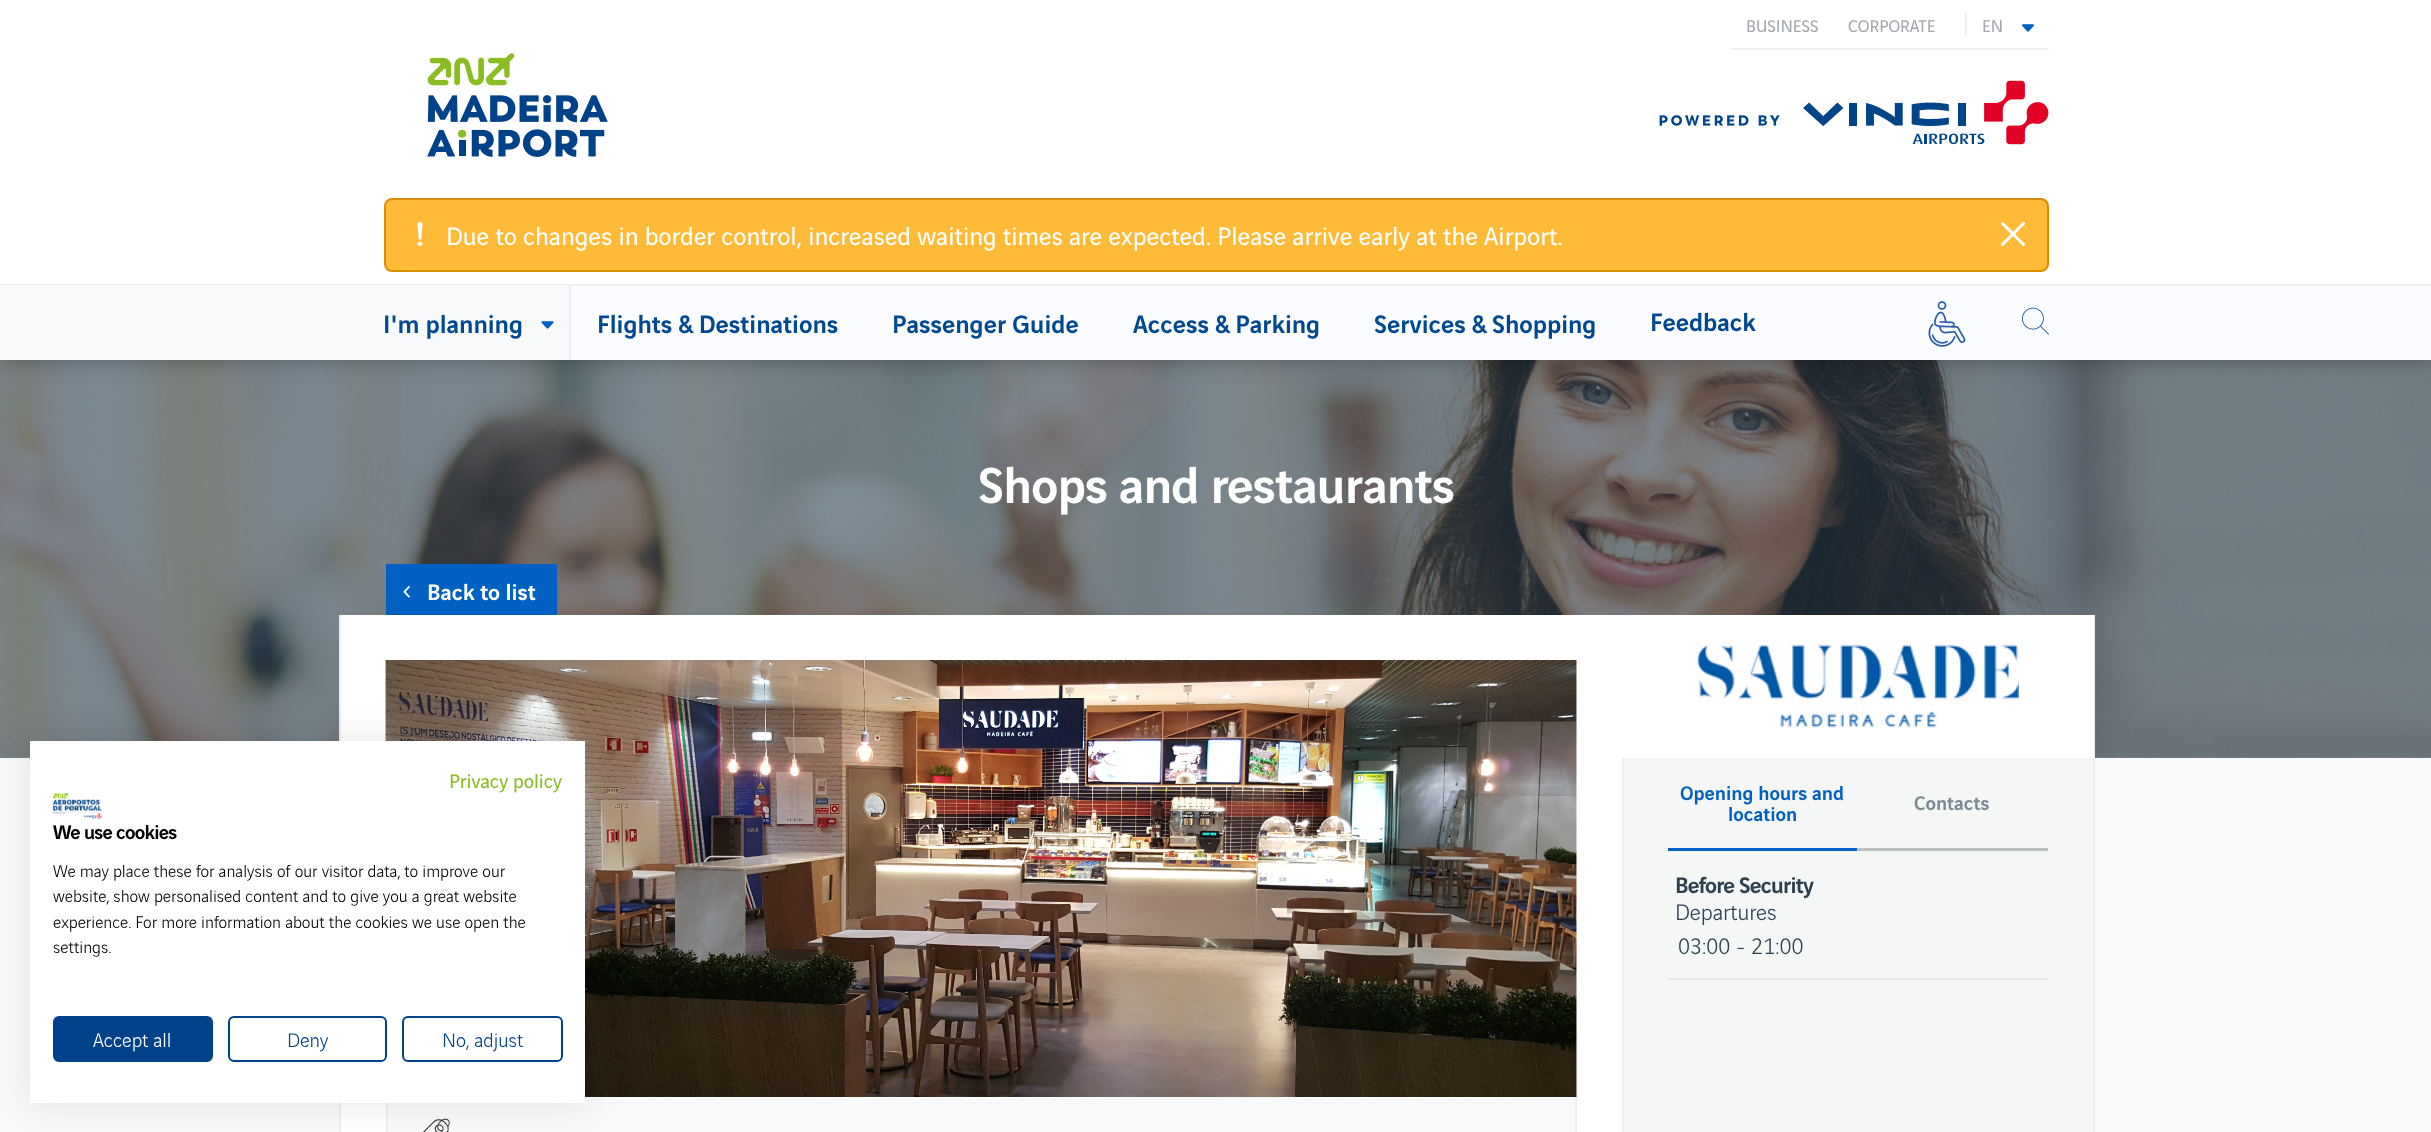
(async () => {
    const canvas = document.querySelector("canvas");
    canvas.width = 2431;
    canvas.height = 1132;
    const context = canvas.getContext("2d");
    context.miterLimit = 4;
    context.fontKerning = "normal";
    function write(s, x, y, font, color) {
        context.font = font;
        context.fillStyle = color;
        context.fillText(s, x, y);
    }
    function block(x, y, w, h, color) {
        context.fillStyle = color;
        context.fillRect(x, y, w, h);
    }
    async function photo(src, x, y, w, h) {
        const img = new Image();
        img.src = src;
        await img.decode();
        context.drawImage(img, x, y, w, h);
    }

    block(0, 0, 2431, 1132, "rgb(248, 250, 250)");
    block(0, 757, 2431, 1, "rgb(125, 138, 147)");
    await photo("media/10.png", 0, 360, 2431, 398);
    block(339, 615, 2, 517, "rgb(237, 239, 242)");
    block(341, 615, 1281, 517, "rgb(255, 255, 255)");
    await photo("media/12.png", 385, 660, 1192, 437);
    block(388, 1097, 1187, 35, "rgb(248, 250, 250)");
    block(386, 1097, 2, 35, "rgb(237, 239, 242)");
    await photo("media/13.png", 423, 1118, 27, 14);
    context.fillStyle = "rgba(0, 0, 0, 0.1)";
    context.filter = "blur(18px)";
    context.beginPath();
    context.rect(30, 741, 555, 362);
    context.fill();
    context.filter = "none";
    block(30, 741, 555, 362, "rgb(255, 255, 255)");
    write("Privacy policy", 449, 788, "21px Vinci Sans", "rgb(138, 189, 36)");
    await photo("media/1.png", 52, 792, 50, 27);
    context.letterSpacing = "-0.75px";
    write("We use cookies", 53, 839, "500 21px Vinci Sans", "rgb(0, 0, 0)");
    context.letterSpacing = "0px";
    write("We may place these for analysis of our visitor data, to improve our", 53, 877, "300 18px Vinci Sans", "rgb(0, 0, 0)");
    write("website, show personalised content and to give you a great website", 53, 902, "300 18px Vinci Sans", "rgb(0, 0, 0)");
    write("experience. For more information about the cookies we use open the", 53, 928, "300 18px Vinci Sans", "rgb(0, 0, 0)");
    write("settings.", 53, 953, "300 18px Vinci Sans", "rgb(0, 0, 0)");
    context.fillStyle = "rgb(0, 66, 137)";
    context.beginPath();
    context.roundRect(54, 1017, 158, 44, 5);
    context.fill();
    context.strokeStyle = "rgb(0, 66, 137)";
    context.lineWidth = 2;
    context.stroke();
    write("Accept all", 93, 1047, "300 21px Vinci Sans", "rgb(255, 255, 255)");
    context.beginPath();
    context.roundRect(229, 1017, 157, 44, 5);
    context.stroke();
    write("Deny", 287, 1047, "300 21px Vinci Sans", "rgb(0, 66, 137)");
    context.beginPath();
    context.roundRect(403, 1017, 159, 44, 5);
    context.stroke();
    write("No, adjust", 442, 1047, "300 21px Vinci Sans", "rgb(0, 66, 137)");
    context.fillStyle = "rgba(0, 0, 0, 0.3)";
    context.filter = "blur(11px)";
    context.beginPath();
    context.rect(0, 0, 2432, 360);
    context.fill();
    context.filter = "none";
    block(0, 0, 2431, 284, "rgb(255, 255, 255)");
    block(1731, 48, 318, 2, "rgb(237, 239, 242)");
    write("BUSINESS", 1746, 32, "18px Vinci Sans", "rgb(161, 167, 172)");
    write("CORPORATE", 1848, 32, "18px Vinci Sans", "rgb(161, 167, 172)");
    block(1965, 12, 2, 24, "rgb(237, 239, 242)");
    write("EN", 1982, 32, "18px Vinci Sans", "rgb(161, 167, 172)");
    await photo("media/2.png", 2022, 24, 12, 8);
    await photo("media/3.png", 1659, 80, 390, 65);
    await photo("media/4.png", 427, 53, 181, 104);
    context.fillStyle = "rgb(255, 187, 55)";
    context.beginPath();
    context.roundRect(385, 199, 1663, 72, 7);
    context.fill();
    context.strokeStyle = "rgb(217, 141, 0)";
    context.stroke();
    await photo("media/5.png", 417, 222, 6, 24);
    write("Due to changes in border control, increased waiting times are expected. Please arrive early at the Airport.", 446, 245, "27px Vinci Sans", "rgb(255, 255, 255)");
    await photo("media/6.png", 2001, 222, 24, 24);
    block(571, 286, 1860, 74, "rgb(250, 252, 255)");
    block(0, 284, 2431, 2, "rgb(237, 239, 242)");
    block(0, 285, 569, 75, "rgb(247, 249, 250)");
    block(569, 285, 2, 75, "rgb(237, 239, 242)");
    write("I'm planning", 383, 333, "500 27px Vinci Sans", "rgb(0, 73, 144)");
    await photo("media/7.png", 541, 321, 13, 8);
    write("Flights & Destinations", 597, 333, "500 27px Vinci Sans", "rgb(0, 73, 144)");
    write("Passenger Guide", 892, 333, "500 27px Vinci Sans", "rgb(0, 73, 144)");
    write("Access & Parking", 1133, 333, "500 27px Vinci Sans", "rgb(0, 73, 144)");
    write("Services & Shopping", 1374, 333, "500 27px Vinci Sans", "rgb(0, 73, 144)");
    write("Feedback", 1650, 331, "500 27px Vinci Sans", "rgb(0, 73, 144)");
    await photo("media/8.png", 1928, 301, 38, 46);
    await photo("media/9.png", 2022, 307, 27, 28);
    context.letterSpacing = "-0.75px";
    write("Shops and restaurants", 978, 503, "500 54px Vinci Sans", "rgb(255, 255, 255)");
    block(386, 564, 171, 51, "rgb(0, 97, 194)");
    await photo("media/11.png", 403, 585, 7, 13);
    context.letterSpacing = "0px";
    write("Back to list", 427, 600, "500 24px Vinci Sans", "rgb(255, 255, 255)");
    block(1624, 758, 469, 374, "rgb(245, 247, 247)");
    block(2093, 615, 2, 517, "rgb(237, 239, 242)");
    block(1622, 758, 2, 374, "rgb(237, 239, 242)");
    block(1575, 1097, 2, 35, "rgb(237, 239, 242)");
    block(1622, 615, 472, 143, "rgb(255, 255, 255)");
    await photo("media/14.png", 1697, 641, 322, 87);
    write("Opening hours and", 1680, 800, "500 21px Vinci Sans", "rgb(0, 97, 194)");
    write("location", 1728, 821, "500 21px Vinci Sans", "rgb(0, 97, 194)");
    write("Contacts", 1914, 810, "500 21px Vinci Sans", "rgb(125, 137, 146)");
    block(1668, 848, 189, 3, "rgb(0, 97, 194)");
    block(1857, 848, 191, 3, "rgb(186, 190, 193)");
    block(1667, 978, 382, 2, "rgb(232, 235, 236)");
    context.letterSpacing = "-0.75px";
    write("Before Security", 1675, 893, "500 24px Vinci Sans", "rgb(45, 64, 78)");
    context.letterSpacing = "0px";
    write("Departures", 1675, 920, "300 24px Vinci Sans", "rgb(45, 64, 78)");
    write("03:00 - 21:00", 1678, 954, "300 24px Vinci Sans", "rgb(45, 64, 78)");
})();
